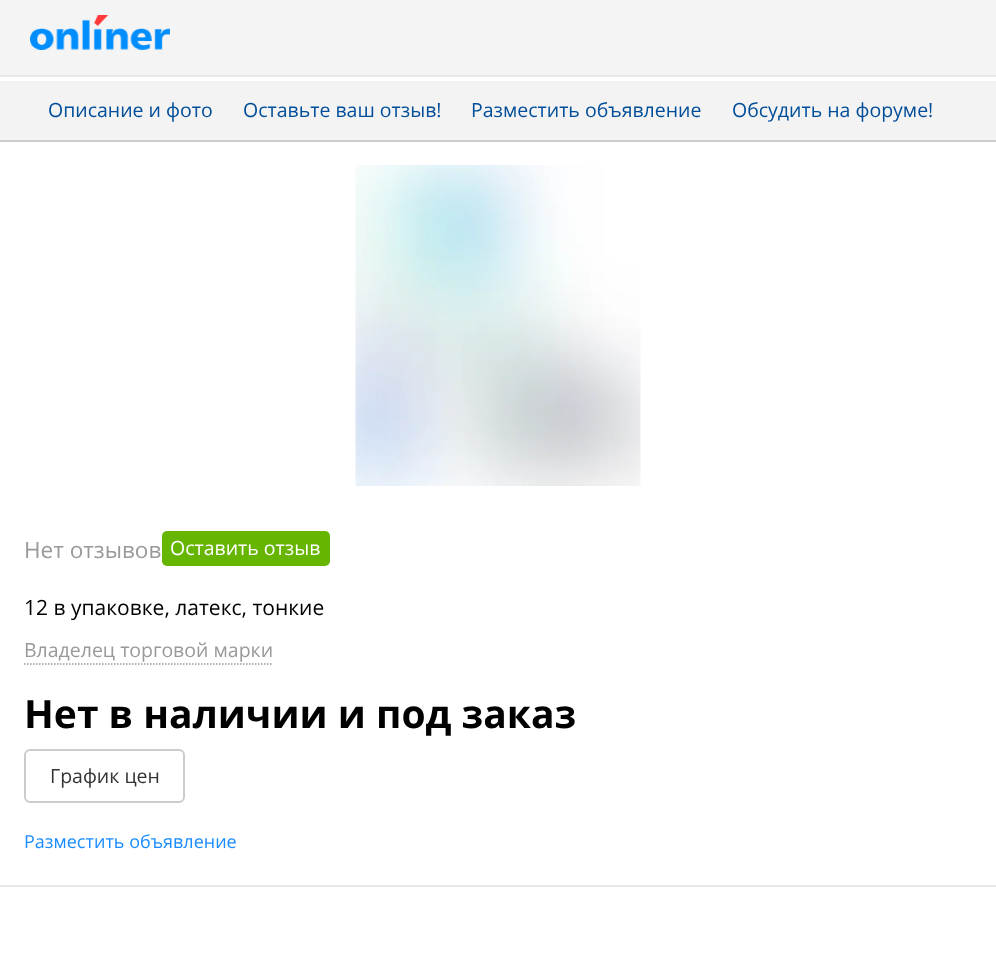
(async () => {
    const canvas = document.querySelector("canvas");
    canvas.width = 996;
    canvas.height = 969;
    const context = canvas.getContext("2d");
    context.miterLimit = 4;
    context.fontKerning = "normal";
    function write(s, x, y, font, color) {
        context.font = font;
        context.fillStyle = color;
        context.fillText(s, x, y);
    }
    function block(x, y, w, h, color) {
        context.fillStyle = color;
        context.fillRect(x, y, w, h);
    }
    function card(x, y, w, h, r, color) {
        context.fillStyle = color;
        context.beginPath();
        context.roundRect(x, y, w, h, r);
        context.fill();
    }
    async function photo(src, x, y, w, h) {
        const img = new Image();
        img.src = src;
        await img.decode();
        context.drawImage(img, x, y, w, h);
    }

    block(0, 0, 996, 969, "rgb(255, 255, 255)");
    block(0, 0, 996, 75, "rgb(244, 244, 244)");
    block(0, 75, 996, 2, "rgb(232, 232, 232)");
    await photo("media/1.png", 30, 15, 140, 35);
    block(0, 81, 996, 59, "rgb(243, 243, 243)");
    block(0, 140, 996, 2, "rgb(204, 204, 204)");
    write("Описание и фото", 48, 117, "19.5px Open Sans", "rgb(0, 77, 153)");
    write("Оставьте ваш отзыв!", 243, 117, "19.5px Open Sans", "rgb(0, 77, 153)");
    write("Разместить объявление", 471, 117, "19.5px Open Sans", "rgb(0, 77, 153)");
    write("Обсудить на форуме!", 732, 117, "19.5px Open Sans", "rgb(0, 77, 153)");
    block(0, 885, 996, 2, "rgb(231, 231, 231)");
    await photo("media/2.png", 355, 165, 286, 321);
    write("Нет отзывов", 24, 558, "22.5px Open Sans", "rgb(153, 153, 153)");
    card(162, 531, 168, 35, 5, "rgb(102, 181, 0)");
    write("Оставить отзыв", 170, 555, "19.5px Open Sans", "rgb(255, 255, 255)");
    write("12 в упаковке, латекс, тонкие", 24, 615, "21px Open Sans", "rgb(0, 0, 0)");
    write("Владелец торговой марки", 24, 657, "19.5px Open Sans", "rgb(153, 153, 153)");
    context.beginPath();
    context.moveTo(24, 664);
    context.lineTo(273, 664);
    context.strokeStyle = "rgb(153, 153, 153)";
    context.lineWidth = 1.5;
    context.setLineDash([1.5, 1.5]);
    context.stroke();
    write("Нет в наличии и под заказ", 24, 728, "bold 39px Open Sans", "rgb(0, 0, 0)");
    context.beginPath();
    context.roundRect(25, 750, 159, 52, 5);
    context.strokeStyle = "rgb(204, 204, 204)";
    context.lineWidth = 2;
    context.setLineDash([]);
    context.stroke();
    write("График цен", 50, 783, "19.5px Open Sans", "rgb(51, 51, 51)");
    write("Разместить объявление", 24, 848, "18px Open Sans", "rgb(25, 140, 255)");
})();
